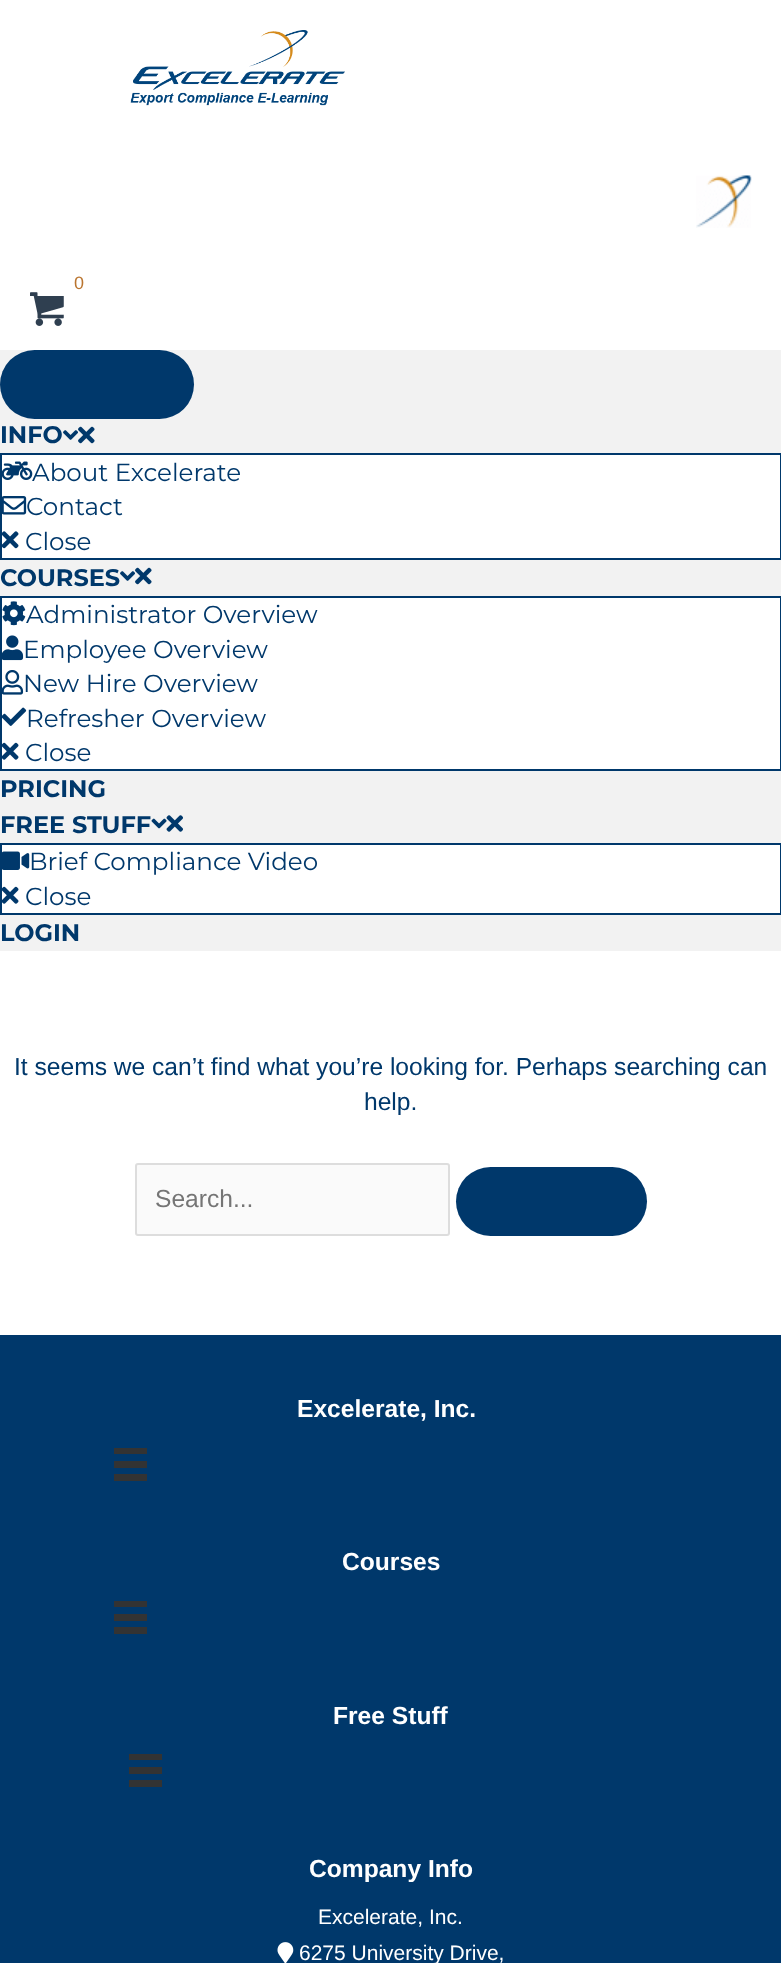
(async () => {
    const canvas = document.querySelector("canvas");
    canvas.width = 781;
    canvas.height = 1963;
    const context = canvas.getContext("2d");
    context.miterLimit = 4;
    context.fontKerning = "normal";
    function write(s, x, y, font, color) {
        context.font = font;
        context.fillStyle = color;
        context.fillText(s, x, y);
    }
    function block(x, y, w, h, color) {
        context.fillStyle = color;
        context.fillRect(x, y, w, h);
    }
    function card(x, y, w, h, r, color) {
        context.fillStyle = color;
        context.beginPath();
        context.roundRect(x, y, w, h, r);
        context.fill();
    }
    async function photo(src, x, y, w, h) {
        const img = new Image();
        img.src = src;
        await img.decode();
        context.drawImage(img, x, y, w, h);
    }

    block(0, 0, 781, 1963, "rgb(255, 255, 255)");
    await photo("media/1.png", 130, 30, 215, 76);
    await photo("media/2.png", 696, 175, 56, 53);
    write("0", 74, 289, "18px Liberation Sans", "rgb(186, 117, 48)");
    await photo("media/3.png", 30, 292, 34, 34);
    block(0, 350, 781, 601, "rgb(242, 242, 242)");
    card(0, 350, 194, 69, 34.5, "rgb(0, 56, 107)");
    write("INFO", 0, 443, "bold 24px Montserrat", "rgb(0, 56, 107)");
    await photo("media/4.png", 63, 430, 15, 10);
    await photo("media/5.png", 78, 426, 17, 18);
    context.fillStyle = "rgb(255, 255, 255)";
    context.beginPath();
    context.rect(1, 454, 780, 105);
    context.fill();
    context.strokeStyle = "rgb(0, 56, 107)";
    context.lineWidth = 2;
    context.stroke();
    await photo("media/6.png", 2, 461, 31, 19);
    write("About Excelerate", 32, 481, "24.6px Montserrat", "rgb(0, 56, 107)");
    await photo("media/7.png", 2, 496, 25, 19);
    write("Contact", 26, 515, "24.6px Montserrat", "rgb(0, 56, 107)");
    await photo("media/8.png", 2, 531, 17, 18);
    write("Close", 25, 550, "24.6px Montserrat", "rgb(0, 56, 107)");
    write("COURSES", 0, 586, "bold 24px Montserrat", "rgb(0, 56, 107)");
    await photo("media/4.png", 120, 571, 15, 10);
    await photo("media/5.png", 135, 567, 17, 18);
    context.fillStyle = "rgb(255, 255, 255)";
    context.beginPath();
    context.rect(1, 597, 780, 173);
    context.fill();
    context.stroke();
    await photo("media/9.png", 2, 601, 24, 25);
    write("Administrator Overview", 26, 623, "24.6px Montserrat", "rgb(0, 56, 107)");
    await photo("media/10.png", 2, 635, 22, 26);
    write("Employee Overview", 23, 658, "24.6px Montserrat", "rgb(0, 56, 107)");
    await photo("media/11.png", 2, 670, 22, 25);
    write("New Hire Overview", 23, 692, "24.6px Montserrat", "rgb(0, 56, 107)");
    await photo("media/12.png", 2, 707, 25, 19);
    write("Refresher Overview", 26, 727, "24.6px Montserrat", "rgb(0, 56, 107)");
    await photo("media/13.png", 2, 742, 17, 18);
    write("Close", 25, 761, "24.6px Montserrat", "rgb(0, 56, 107)");
    write("PRICING", 0, 797, "bold 24px Montserrat", "rgb(0, 56, 107)");
    write("FREE STUFF", 0, 833, "bold 24px Montserrat", "rgb(0, 56, 107)");
    await photo("media/14.png", 151, 818, 16, 11);
    await photo("media/15.png", 166, 815, 17, 17);
    context.fillStyle = "rgb(255, 255, 255)";
    context.beginPath();
    context.rect(1, 844, 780, 70);
    context.fill();
    context.stroke();
    await photo("media/16.png", 2, 851, 28, 19);
    write("Brief Compliance Video", 29, 870, "24.6px Montserrat", "rgb(0, 56, 107)");
    await photo("media/13.png", 2, 886, 17, 18);
    write("Close", 25, 905, "24.6px Montserrat", "rgb(0, 56, 107)");
    write("LOGIN", 0, 941, "bold 24px Montserrat", "rgb(0, 56, 107)");
    write("It seems we can’t find what you’re looking for. Perhaps searching can", 14, 1075, "24.6px Liberation Sans", "rgb(0, 56, 107)");
    write("help.", 364, 1110, "24.6px Liberation Sans", "rgb(0, 56, 107)");
    context.fillStyle = "rgb(250, 250, 250)";
    context.beginPath();
    context.roundRect(136, 1164, 313, 71, 2);
    context.fill();
    context.strokeStyle = "rgb(221, 221, 221)";
    context.stroke();
    write("Search...", 155, 1207, "24.6px Liberation Sans", "rgb(117, 117, 117)");
    card(456, 1167, 191, 69, 34.5, "rgb(0, 56, 107)");
    block(0, 1335, 781, 628, "rgb(0, 56, 107)");
    write("Excelerate, Inc.", 297, 1417, "bold 24.6px Liberation Sans", "rgb(255, 255, 255)");
    block(114, 1448, 33, 6, "rgb(51, 51, 51)");
    block(114, 1461, 33, 7, "rgb(51, 51, 51)");
    block(114, 1474, 33, 7, "rgb(51, 51, 51)");
    write("Courses", 342, 1570, "bold 24.6px Liberation Sans", "rgb(255, 255, 255)");
    block(114, 1601, 33, 6, "rgb(51, 51, 51)");
    block(114, 1614, 33, 7, "rgb(51, 51, 51)");
    block(114, 1627, 33, 7, "rgb(51, 51, 51)");
    write("Free Stuff", 333, 1724, "bold 24.6px Liberation Sans", "rgb(255, 255, 255)");
    block(129, 1754, 33, 6, "rgb(51, 51, 51)");
    block(129, 1767, 33, 7, "rgb(51, 51, 51)");
    block(129, 1780, 33, 7, "rgb(51, 51, 51)");
    write("Company Info", 309, 1877, "bold 24.6px Liberation Sans", "rgb(255, 255, 255)");
    write("Excelerate, Inc.", 318, 1924, "21px Liberation Sans", "rgb(255, 255, 255)");
    await photo("media/17.png", 277, 1942, 17, 21);
    write("6275 University Drive,", 299, 1960, "21px Liberation Sans", "rgb(255, 255, 255)");
})();
